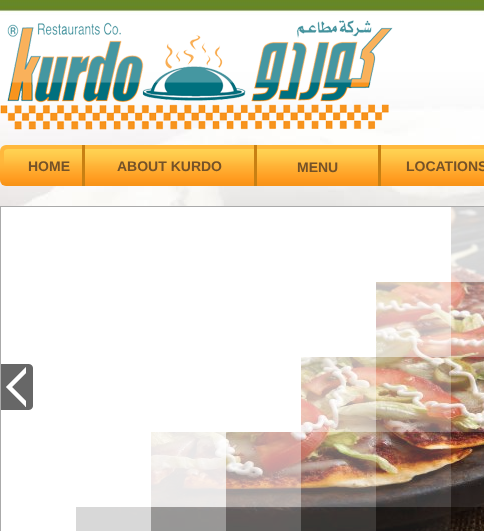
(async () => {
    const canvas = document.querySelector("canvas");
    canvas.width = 484;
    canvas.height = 531;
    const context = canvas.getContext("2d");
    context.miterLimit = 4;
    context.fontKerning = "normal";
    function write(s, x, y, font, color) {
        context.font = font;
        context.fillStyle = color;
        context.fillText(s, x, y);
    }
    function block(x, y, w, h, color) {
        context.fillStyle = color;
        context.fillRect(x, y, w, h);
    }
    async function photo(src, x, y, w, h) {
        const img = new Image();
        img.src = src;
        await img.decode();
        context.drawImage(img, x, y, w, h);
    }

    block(0, 0, 484, 531, "rgb(255, 255, 255)");
    await photo("media/1.png", 0, 0, 484, 206);
    await photo("media/2.png", 0, 20, 393, 110);
    await photo("media/3.png", 0, 145, 484, 41);
    write("HOME", 28, 171, "bold 14px Liberation Sans", "rgb(116, 82, 40)");
    block(82, 145, 3, 41, "rgb(200, 128, 19)");
    write("ABOUT KURDO", 117, 171, "bold 14px Liberation Sans", "rgb(116, 82, 40)");
    block(254, 145, 3, 41, "rgb(200, 128, 19)");
    write("MENU", 297, 172, "bold 14px Liberation Sans", "rgb(116, 82, 40)");
    block(378, 145, 3, 41, "rgb(200, 128, 19)");
    write("LOCATIONS", 406, 171, "bold 14px Liberation Sans", "rgb(116, 82, 40)");
    context.strokeStyle = "rgb(170, 170, 170)";
    context.strokeRect(0.5, 206.5, 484, 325);
    await photo("media/4.png", 1, 364, 32, 46);
    await photo("media/5.png", 451, 207, 33, 75);
    await photo("media/6.png", 376, 282, 75, 75);
    await photo("media/7.png", 451, 282, 33, 75);
    await photo("media/8.png", 301, 357, 75, 75);
    await photo("media/9.png", 376, 357, 75, 75);
    await photo("media/10.png", 451, 357, 33, 75);
    await photo("media/11.png", 151, 432, 75, 75);
    await photo("media/12.png", 226, 432, 75, 75);
    await photo("media/13.png", 301, 432, 75, 75);
    await photo("media/14.png", 376, 432, 75, 75);
    await photo("media/15.png", 451, 432, 33, 75);
    await photo("media/16.png", 76, 507, 75, 24);
    await photo("media/17.png", 151, 507, 75, 24);
    await photo("media/18.png", 226, 507, 75, 24);
    await photo("media/19.png", 301, 507, 75, 24);
    await photo("media/20.png", 376, 507, 75, 24);
    await photo("media/21.png", 451, 507, 33, 24);
})();
